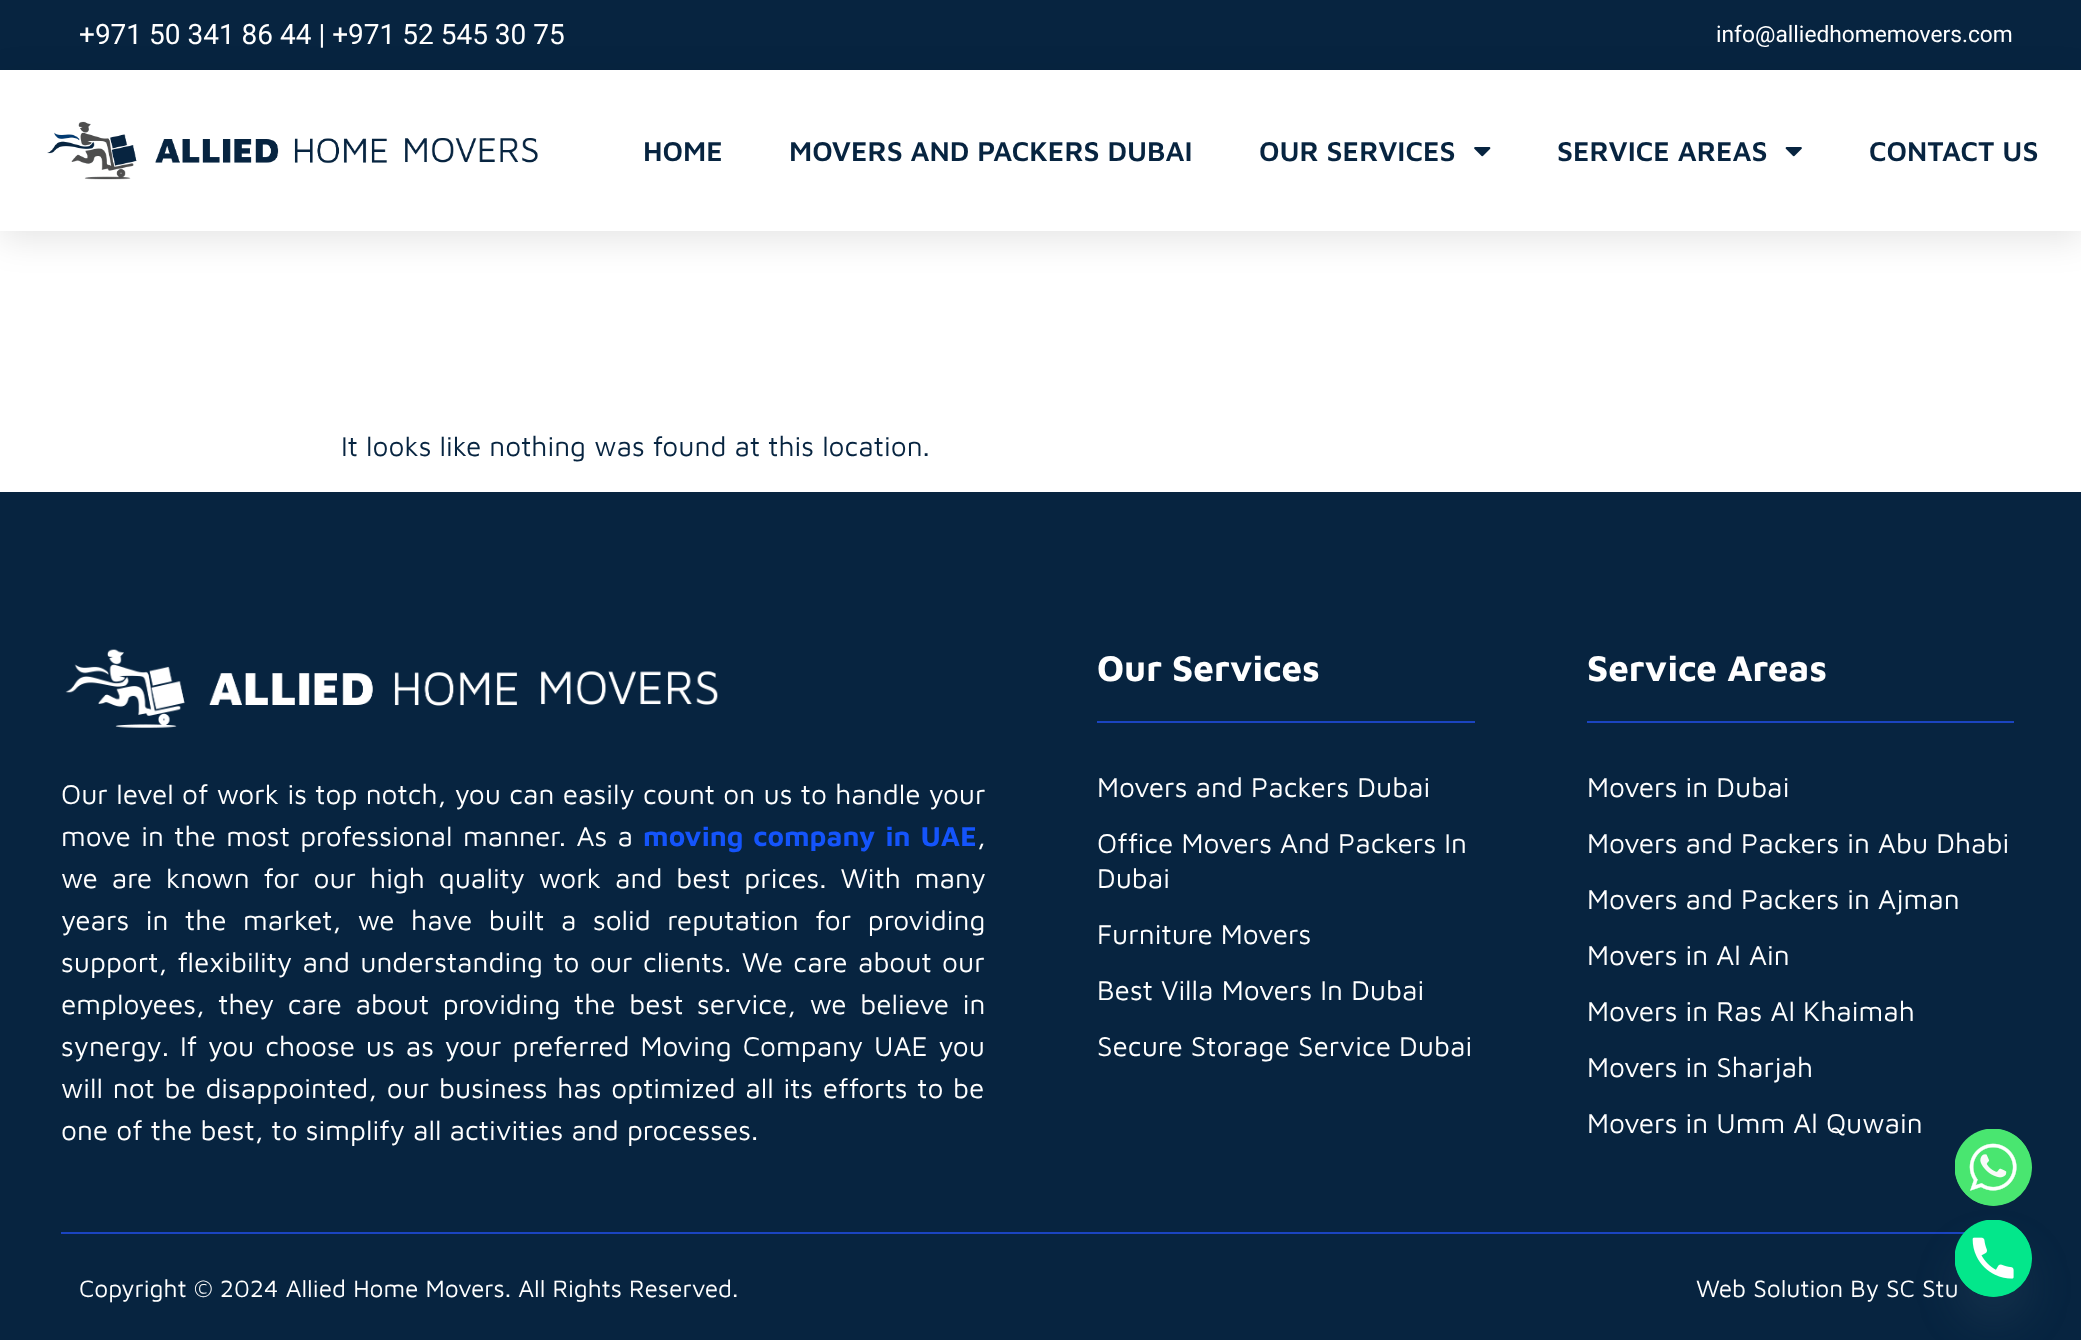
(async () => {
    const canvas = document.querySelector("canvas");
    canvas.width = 2081;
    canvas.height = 1340;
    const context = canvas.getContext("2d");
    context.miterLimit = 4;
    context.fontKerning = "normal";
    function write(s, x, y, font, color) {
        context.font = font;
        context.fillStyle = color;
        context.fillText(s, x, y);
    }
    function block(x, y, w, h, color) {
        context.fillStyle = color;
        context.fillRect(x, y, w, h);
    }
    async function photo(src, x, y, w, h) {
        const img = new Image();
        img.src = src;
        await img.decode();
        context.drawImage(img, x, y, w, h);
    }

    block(0, 0, 2081, 1340, "rgb(255, 255, 255)");
    block(0, 0, 2081, 70, "rgb(7, 36, 64)");
    write("+971 50 341 86 44 | +971 52 545 30 75", 79, 44, "28px Roboto", "rgb(255, 255, 255)");
    write("info@alliedhomemovers.com", 1716, 42, "22.75px Roboto", "rgb(255, 255, 255)");
    context.save();
    context.beginPath();
    context.moveTo(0, 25);
    context.lineTo(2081, 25);
    context.lineTo(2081, 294);
    context.lineTo(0, 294);
    context.closePath();
    context.moveTo(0, 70);
    context.lineTo(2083, 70);
    context.lineTo(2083, 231);
    context.lineTo(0, 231);
    context.closePath();
    context.clip("evenodd");
    context.fillStyle = "rgba(0, 0, 0, 0.1)";
    context.filter = "blur(17.5px)";
    context.beginPath();
    context.rect(0, 79, 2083, 161);
    context.fill();
    context.filter = "none";
    context.restore();
    await photo("media/1.png", 47, 121, 491, 59);
    write("HOME", 643, 161, "600 28px Maven Pro", "rgb(7, 36, 64)");
    write("MOVERS AND PACKERS DUBAI", 789, 161, "600 28px Maven Pro", "rgb(7, 36, 64)");
    write("OUR SERVICES", 1259, 161, "600 28px Maven Pro", "rgb(7, 36, 64)");
    await photo("media/2.png", 1474, 147, 17, 10);
    write("SERVICE AREAS", 1557, 161, "600 28px Maven Pro", "rgb(7, 36, 64)");
    await photo("media/3.png", 1785, 147, 17, 10);
    write("CONTACT US", 1869, 161, "600 28px Maven Pro", "rgb(7, 36, 64)");
    write("It looks like nothing was found at this location.", 341, 456, "28px Maven Pro", "rgb(7, 36, 64)");
    block(0, 492, 2081, 848, "rgb(7, 36, 64)");
    block(61, 1232, 1904, 2, "rgb(27, 68, 192)");
    await photo("media/4.png", 65, 649, 653, 79);
    context.wordSpacing = "0.2px";
    write("Our level of work is top notch, you can easily count on us to handle your", 61, 804, "28px Maven Pro", "rgb(255, 255, 255)");
    context.wordSpacing = "2.25px";
    write("move in the most professional manner. As a", 61, 846, "28px Maven Pro", "rgb(255, 255, 255)");
    write("moving company in UAE", 643, 846, "bold 28px Maven Pro", "rgb(20, 84, 251)");
    context.wordSpacing = "0px";
    write(",", 977, 846, "28px Maven Pro", "rgb(255, 255, 255)");
    context.wordSpacing = "5.75px";
    write("we are known for our high quality work and best prices. With many", 61, 888, "28px Maven Pro", "rgb(255, 255, 255)");
    context.wordSpacing = "8.4px";
    write("years in the market, we have built a solid reputation for providing", 61, 930, "28px Maven Pro", "rgb(255, 255, 255)");
    context.wordSpacing = "2.25px";
    write("support, flexibility and understanding to our clients. We care about our", 61, 972, "28px Maven Pro", "rgb(255, 255, 255)");
    context.wordSpacing = "5.5px";
    write("employees, they care about providing the best service, we believe in", 61, 1014, "28px Maven Pro", "rgb(255, 255, 255)");
    context.wordSpacing = "2.75px";
    write("synergy. If you choose us as your preferred Moving Company UAE you", 61, 1056, "28px Maven Pro", "rgb(255, 255, 255)");
    context.wordSpacing = "1.6px";
    write("will not be disappointed, our business has optimized all its efforts to be", 61, 1098, "28px Maven Pro", "rgb(255, 255, 255)");
    context.wordSpacing = "0px";
    write("one of the best, to simplify all activities and processes.", 61, 1140, "28px Maven Pro", "rgb(255, 255, 255)");
    write("Our Services", 1097, 681, "bold 36.75px Maven Pro", "rgb(255, 255, 255)");
    block(1097, 721, 378, 2, "rgb(27, 68, 192)");
    write("Movers and Packers Dubai", 1097, 797, "28px Maven Pro", "rgb(255, 255, 255)");
    write("Office Movers And Packers In", 1097, 853, "28px Maven Pro", "rgb(255, 255, 255)");
    write("Dubai", 1097, 888, "28px Maven Pro", "rgb(255, 255, 255)");
    write("Furniture Movers", 1097, 944, "28px Maven Pro", "rgb(255, 255, 255)");
    write("Best Villa Movers In Dubai", 1097, 1000, "28px Maven Pro", "rgb(255, 255, 255)");
    write("Secure Storage Service Dubai", 1097, 1056, "28px Maven Pro", "rgb(255, 255, 255)");
    write("Service Areas", 1587, 681, "bold 36.75px Maven Pro", "rgb(255, 255, 255)");
    block(1587, 721, 427, 2, "rgb(27, 68, 192)");
    write("Movers in Dubai", 1587, 797, "28px Maven Pro", "rgb(255, 255, 255)");
    write("Movers and Packers in Abu Dhabi", 1587, 853, "28px Maven Pro", "rgb(255, 255, 255)");
    write("Movers and Packers in Ajman", 1587, 909, "28px Maven Pro", "rgb(255, 255, 255)");
    write("Movers in Al Ain", 1587, 965, "28px Maven Pro", "rgb(255, 255, 255)");
    write("Movers in Ras Al Khaimah", 1587, 1021, "28px Maven Pro", "rgb(255, 255, 255)");
    write("Movers in Sharjah", 1587, 1077, "28px Maven Pro", "rgb(255, 255, 255)");
    write("Movers in Umm Al Quwain", 1587, 1133, "28px Maven Pro", "rgb(255, 255, 255)");
    write("Copyright © 2024 Allied Home Movers. All Rights Reserved.", 79, 1297, "24.5px Maven Pro", "rgb(255, 255, 255)");
    write("Web Solution By SC Stu", 1696, 1297, "24.5px Maven Pro", "rgb(255, 255, 255)");
    context.fillStyle = "rgb(73, 230, 112)";
    context.beginPath();
    context.arc(1993.5, 1167.5, 38.5, 0, Math.PI * 2);
    context.fill();
    await photo("media/5.png", 1955, 1129, 77, 77);
    context.fillStyle = "rgba(73, 104, 126, 0.16)";
    context.filter = "blur(21px)";
    context.beginPath();
    context.roundRect(1955, 1248, 77, 77, 38.5);
    context.fill();
    context.filter = "none";
    context.fillStyle = "rgb(3, 231, 139)";
    context.beginPath();
    context.arc(1993.5, 1258.5, 38.5, 0, Math.PI * 2);
    context.fill();
    await photo("media/6.png", 1955, 1220, 77, 77);
})();
